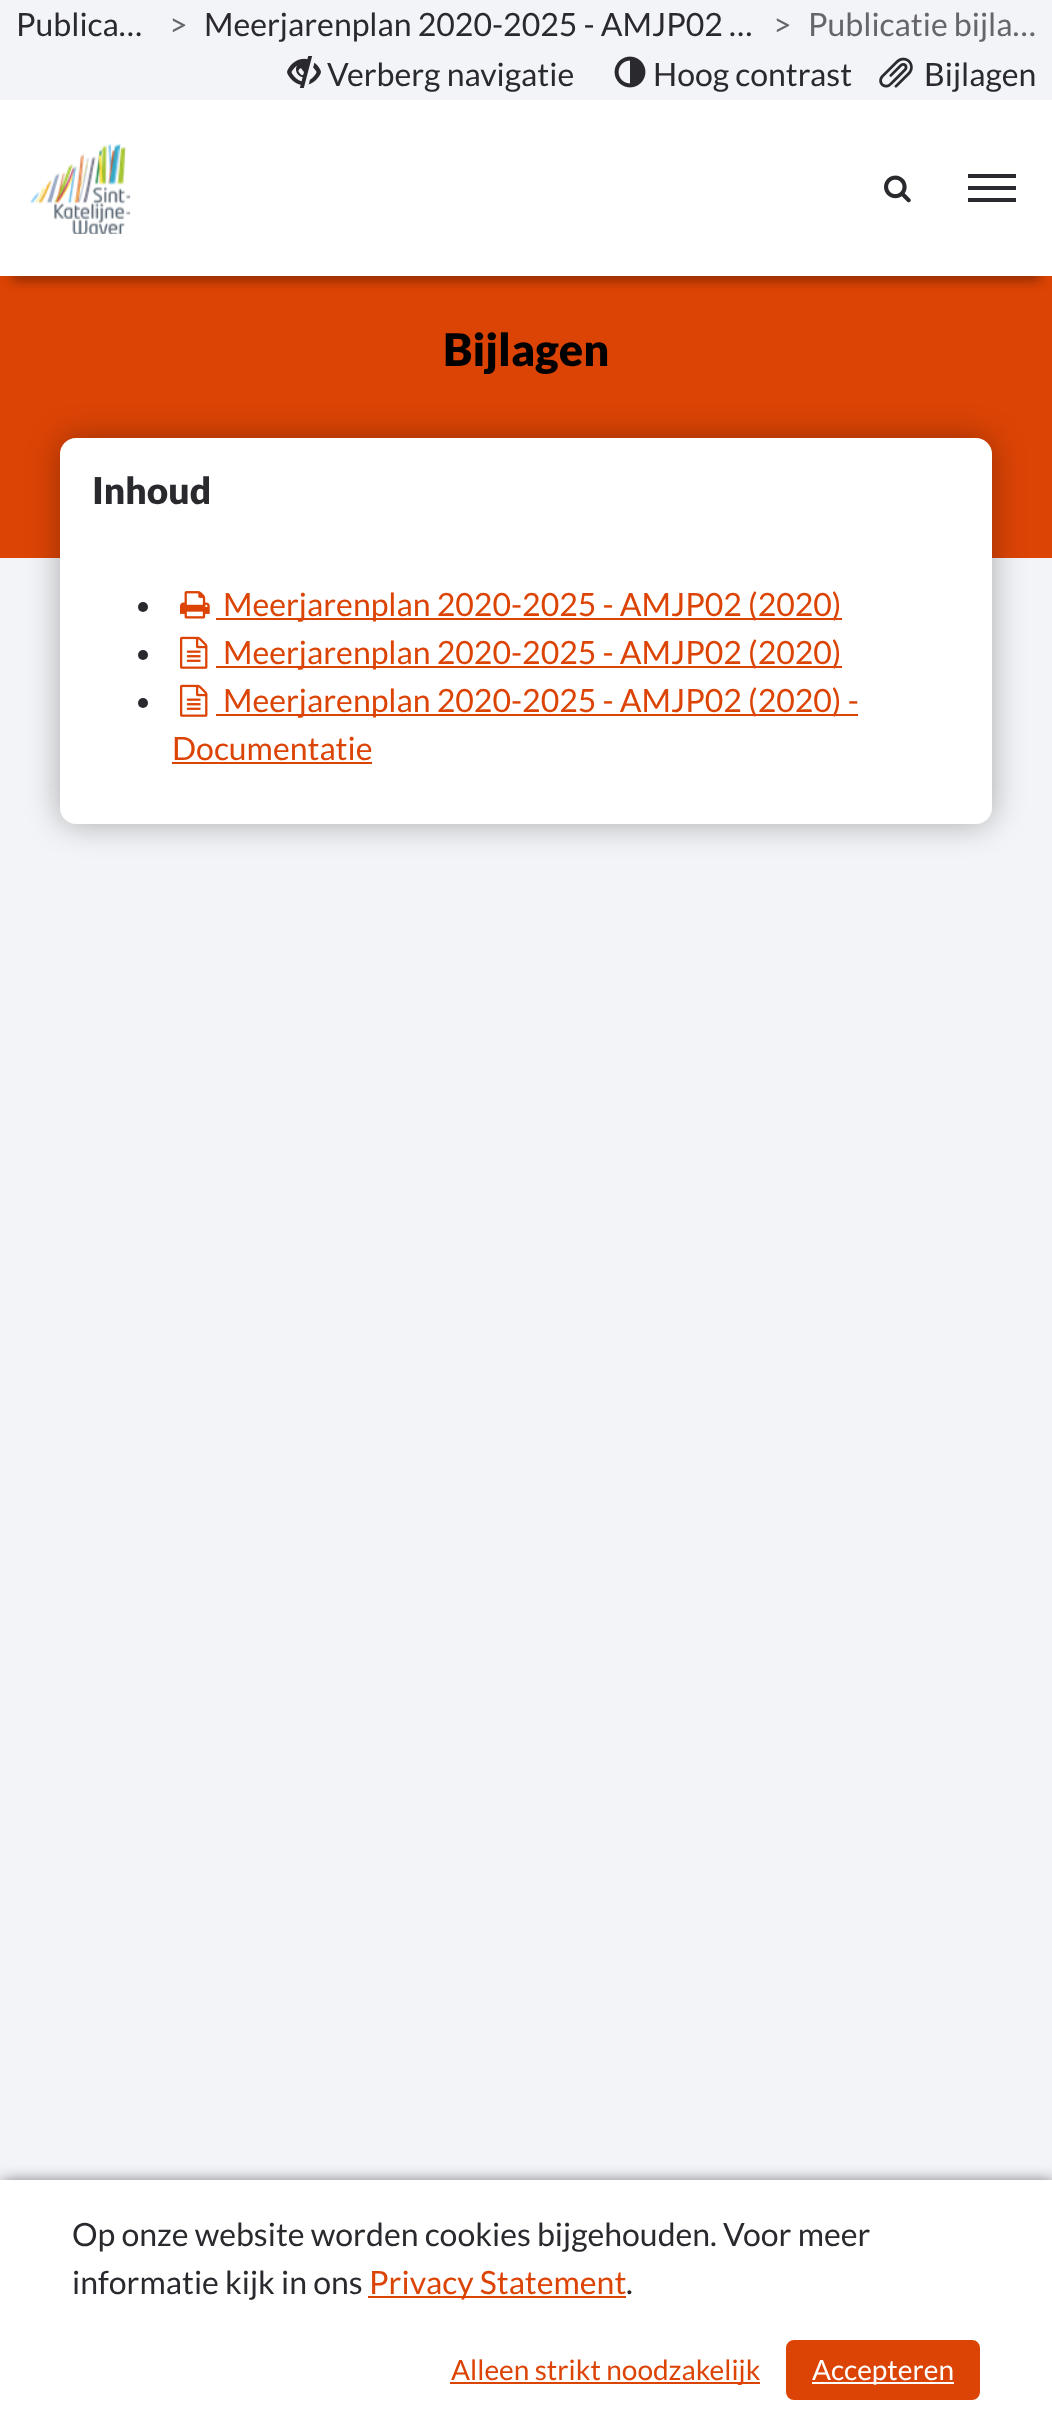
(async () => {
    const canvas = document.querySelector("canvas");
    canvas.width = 1052;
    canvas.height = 2424;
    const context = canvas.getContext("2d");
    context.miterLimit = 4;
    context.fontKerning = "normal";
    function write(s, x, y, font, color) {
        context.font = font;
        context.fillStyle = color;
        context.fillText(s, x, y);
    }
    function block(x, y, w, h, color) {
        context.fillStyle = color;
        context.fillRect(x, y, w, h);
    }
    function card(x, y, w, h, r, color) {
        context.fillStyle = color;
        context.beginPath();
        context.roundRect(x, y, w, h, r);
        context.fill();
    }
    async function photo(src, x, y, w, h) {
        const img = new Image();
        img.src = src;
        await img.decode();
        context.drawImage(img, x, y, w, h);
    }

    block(0, 0, 1052, 2424, "rgb(242, 244, 247)");
    block(0, 276, 1052, 282, "rgb(220, 68, 5)");
    context.fillStyle = "rgba(0, 0, 0, 0.2)";
    context.filter = "blur(6px)";
    context.beginPath();
    context.rect(12, 28, 1028, 252);
    context.fill();
    context.filter = "none";
    context.filter = "blur(6px)";
    context.beginPath();
    context.rect(12, 28, 1028, 252);
    context.fill();
    context.filter = "none";
    block(0, 100, 1052, 176, "rgb(255, 255, 255)");
    block(0, 16, 1052, 84, "rgb(242, 244, 247)");
    write("Publica…", 16, 36, "32px Lato", "rgb(42, 41, 46)");
    write(">", 169, 36, "32px Lato", "rgb(102, 102, 106)");
    write("Meerjarenplan 2020-2025 - AMJP02 …", 204, 36, "32px Lato", "rgb(42, 41, 46)");
    write(">", 773, 36, "32px Lato", "rgb(102, 102, 106)");
    write("Publicatie bijla…", 808, 36, "32px Lato", "rgb(102, 102, 106)");
    await photo("media/1.png", 287, 56, 34, 32);
    write("Verberg navigatie", 327, 86, "32px Lato", "rgb(42, 41, 46)");
    await photo("media/2.png", 614, 56, 32, 32);
    write("Hoog contrast", 653, 86, "32px Lato", "rgb(42, 41, 46)");
    await photo("media/3.png", 879, 57, 34, 31);
    write("Bijlagen", 924, 86, "32px Lato", "rgb(42, 41, 46)");
    await photo("media/4.png", 30, 143, 101, 91);
    await photo("media/5.png", 884, 175, 27, 28);
    block(968, 174, 48, 4, "rgb(42, 41, 46)");
    block(968, 186, 48, 4, "rgb(42, 41, 46)");
    block(968, 198, 48, 4, "rgb(42, 41, 46)");
    write("Bijlagen", 443, 366, "900 45px Lato", "rgb(0, 0, 0)");
    context.fillStyle = "rgba(0, 0, 0, 0.3)";
    context.filter = "blur(16px)";
    context.beginPath();
    context.roundRect(60, 438, 932, 386, 16);
    context.fill();
    context.filter = "none";
    card(60, 438, 932, 386, 16, "rgb(255, 255, 255)");
    write("Inhoud", 92, 504, "900 37px Lato", "rgb(42, 41, 46)");
    context.beginPath();
    context.arc(143, 607, 5, 0, Math.PI * 2);
    context.fill();
    await photo("media/6.png", 180, 591, 30, 28);
    block(216, 618, 626, 2, "rgb(220, 68, 5)");
    write("Meerjarenplan 2020-2025 - AMJP02 (2020)", 223, 616, "32px Lato", "rgb(220, 68, 5)");
    context.fillStyle = "rgb(42, 41, 46)";
    context.beginPath();
    context.arc(143, 655, 5, 0, Math.PI * 2);
    context.fill();
    await photo("media/7.png", 180, 636, 28, 33);
    block(216, 666, 626, 2, "rgb(220, 68, 5)");
    write("Meerjarenplan 2020-2025 - AMJP02 (2020)", 223, 664, "32px Lato", "rgb(220, 68, 5)");
    context.fillStyle = "rgb(42, 41, 46)";
    context.beginPath();
    context.arc(143, 703, 5, 0, Math.PI * 2);
    context.fill();
    await photo("media/7.png", 180, 684, 28, 33);
    block(216, 714, 642, 2, "rgb(220, 68, 5)");
    write("Meerjarenplan 2020-2025 - AMJP02 (2020) -", 223, 712, "32px Lato", "rgb(220, 68, 5)");
    write("Documentatie", 172, 760, "32px Lato", "rgb(220, 68, 5)");
    block(172, 762, 200, 2, "rgb(220, 68, 5)");
    context.fillStyle = "rgba(0, 0, 0, 0.6)";
    context.filter = "blur(8px)";
    context.beginPath();
    context.rect(2, 2182, 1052, 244);
    context.fill();
    context.filter = "none";
    block(0, 2180, 1052, 244, "rgb(255, 255, 255)");
    write("Op onze website worden cookies bijgehouden. Voor meer", 72, 2246, "32px Lato", "rgb(42, 41, 46)");
    write("informatie kijk in ons", 72, 2294, "32px Lato", "rgb(42, 41, 46)");
    block(368, 2296, 258, 2, "rgb(220, 68, 5)");
    write("Privacy Statement", 369, 2294, "32px Lato", "rgb(220, 68, 5)");
    write(".", 626, 2294, "32px Lato", "rgb(42, 41, 46)");
    block(450, 2382, 310, 2, "rgb(220, 68, 5)");
    write("Alleen strikt noodzakelijk", 451, 2380, "28px Lato", "rgb(220, 68, 5)");
    context.beginPath();
    context.roundRect(787, 2341, 192, 58, 7);
    context.fill();
    context.strokeStyle = "rgb(220, 68, 5)";
    context.lineWidth = 2;
    context.stroke();
    block(812, 2382, 142, 2, "rgb(255, 255, 255)");
    write("Accepteren", 812, 2380, "28px Lato", "rgb(255, 255, 255)");
})();
